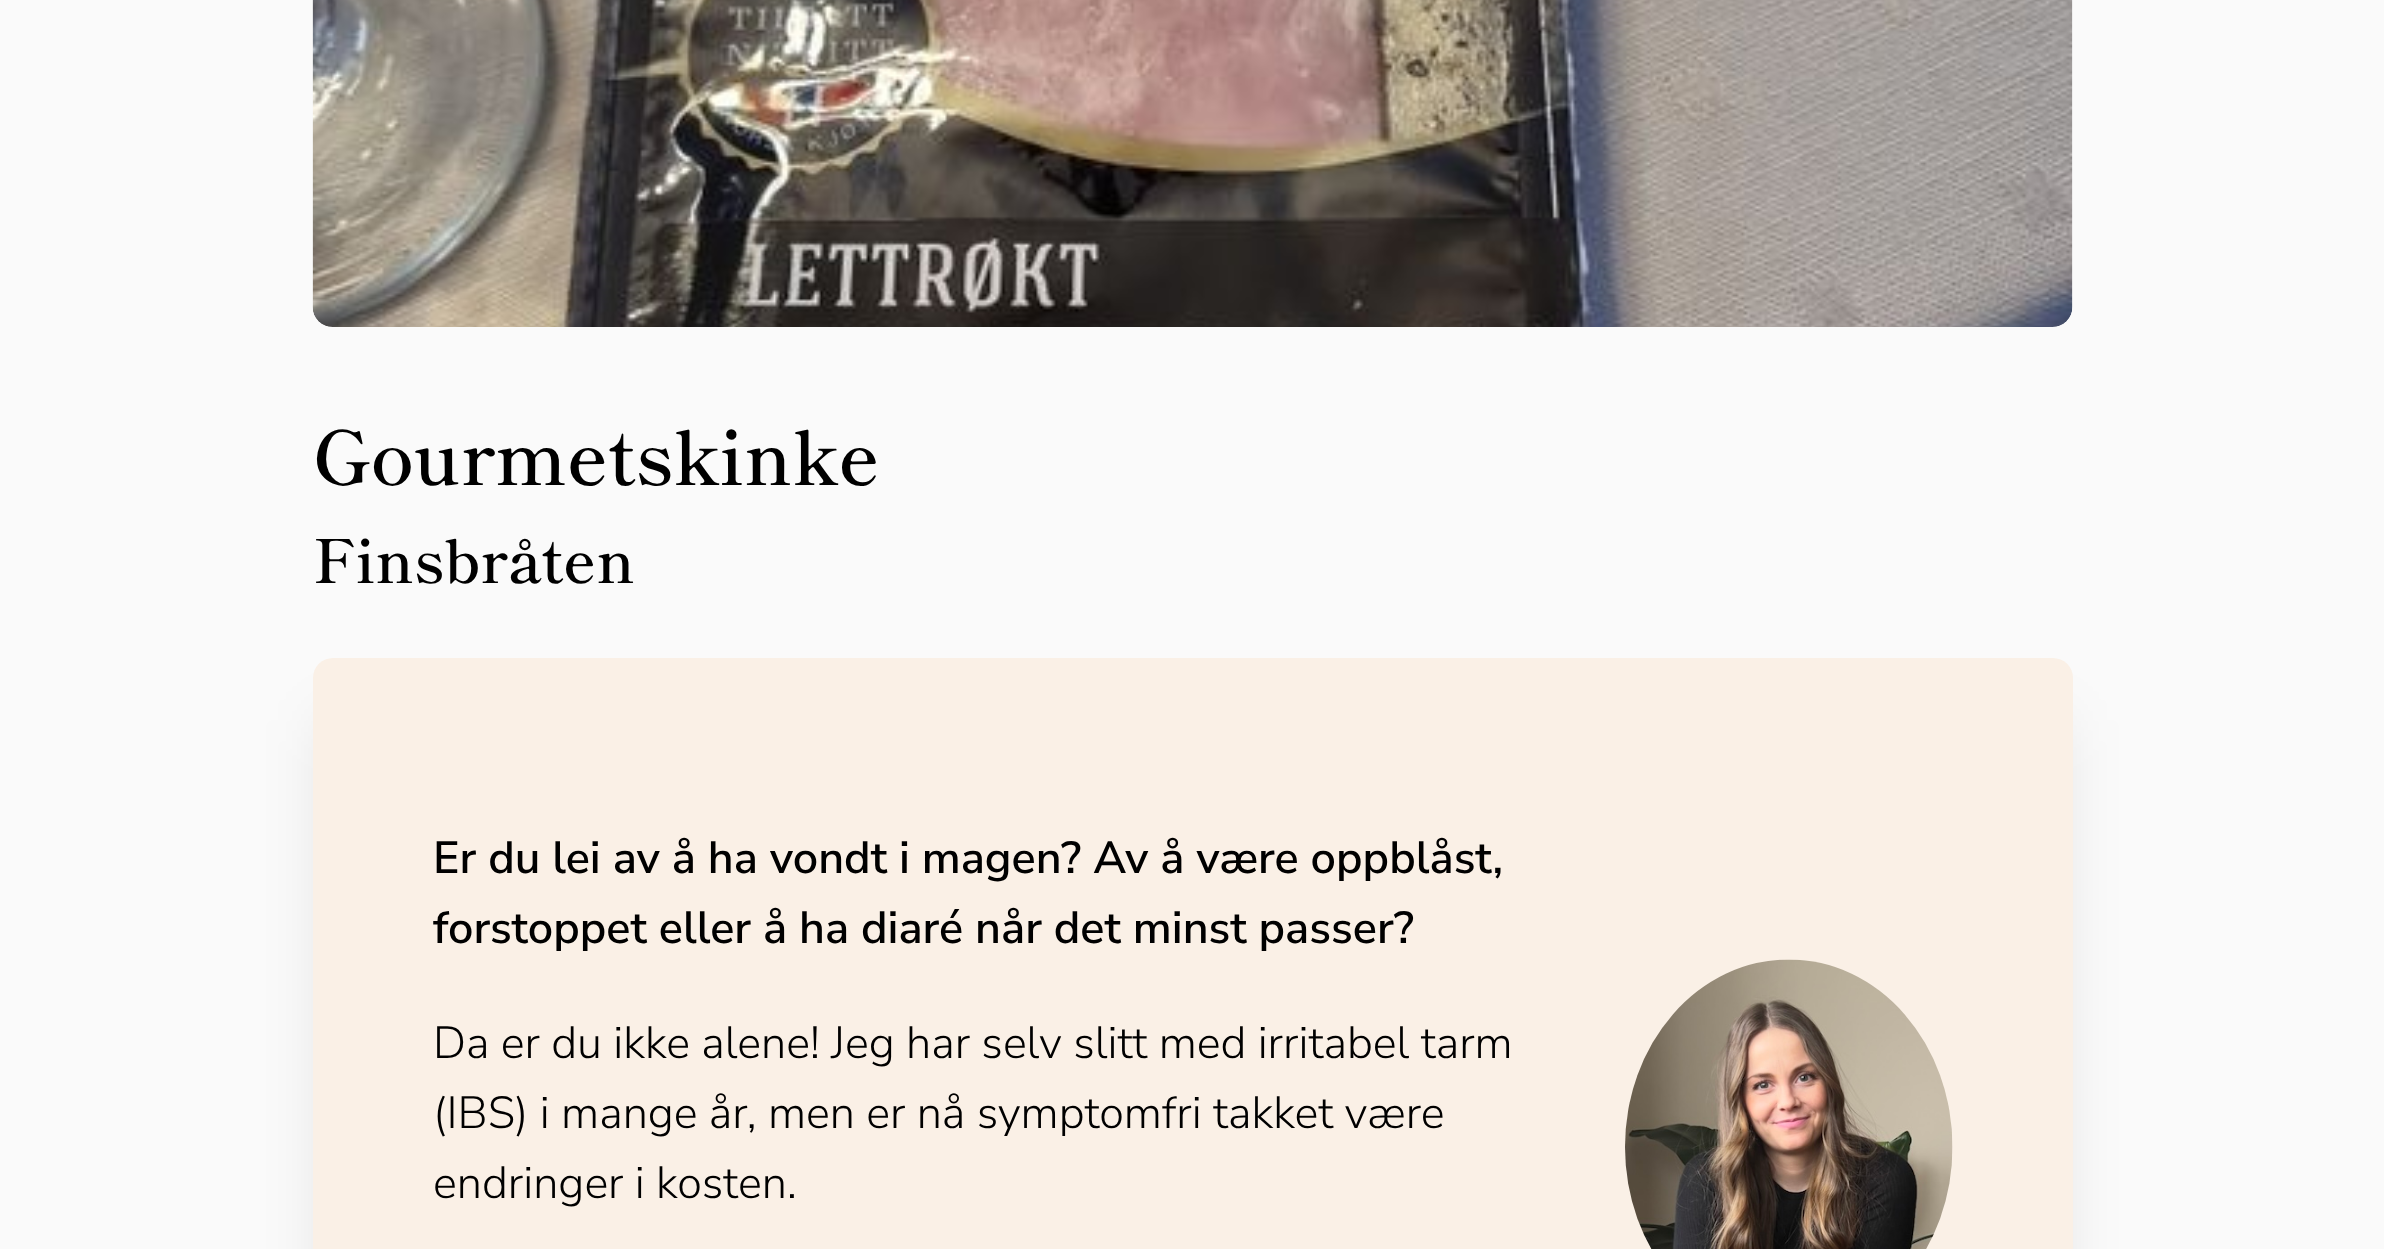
(async () => {
    const canvas = document.querySelector("canvas");
    canvas.width = 2384;
    canvas.height = 1249;
    const context = canvas.getContext("2d");
    context.miterLimit = 4;
    context.fontKerning = "normal";
    function write(s, x, y, font, color) {
        context.font = font;
        context.fillStyle = color;
        context.fillText(s, x, y);
    }
    function block(x, y, w, h, color) {
        context.fillStyle = color;
        context.fillRect(x, y, w, h);
    }
    function card(x, y, w, h, r, color) {
        context.fillStyle = color;
        context.beginPath();
        context.roundRect(x, y, w, h, r);
        context.fill();
    }
    async function photo(src, x, y, w, h) {
        const img = new Image();
        img.src = src;
        await img.decode();
        context.drawImage(img, x, y, w, h);
    }

    block(0, 0, 2384, 1249, "rgb(250, 250, 250)");
    await photo("media/1.png", 312, 0, 1761, 327);
    write("Gourmetskinke", 313, 485, "600 75px 'Shippori Mincho B1'", "rgb(0, 0, 0)");
    write("Finsbråten", 313, 583, "600 60px 'Shippori Mincho B1'", "rgb(0, 0, 0)");
    context.fillStyle = "rgba(0, 0, 0, 0.1)";
    context.filter = "blur(31px)";
    context.beginPath();
    context.roundRect(325, 720, 1735, 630, 8);
    context.fill();
    context.filter = "none";
    card(313, 658, 1760, 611, 20, "rgb(250, 240, 230)");
    write("Er du lei av å ha vondt i magen? Av å være oppblåst,", 433, 873, "600 45px Nunito Sans", "rgb(0, 0, 0)");
    write("forstoppet eller å ha diaré når det minst passer?", 433, 943, "600 45px Nunito Sans", "rgb(0, 0, 0)");
    write("Da er du ikke alene! Jeg har selv slitt med irritabel tarm", 433, 1058, "300 45px Nunito Sans", "rgb(0, 0, 0)");
    write("(IBS) i mange år, men er nå symptomfri takket være", 433, 1128, "300 45px Nunito Sans", "rgb(0, 0, 0)");
    write("endringer i kosten.", 433, 1198, "300 45px Nunito Sans", "rgb(0, 0, 0)");
    await photo("media/2.png", 1625, 959, 328, 290);
})();
